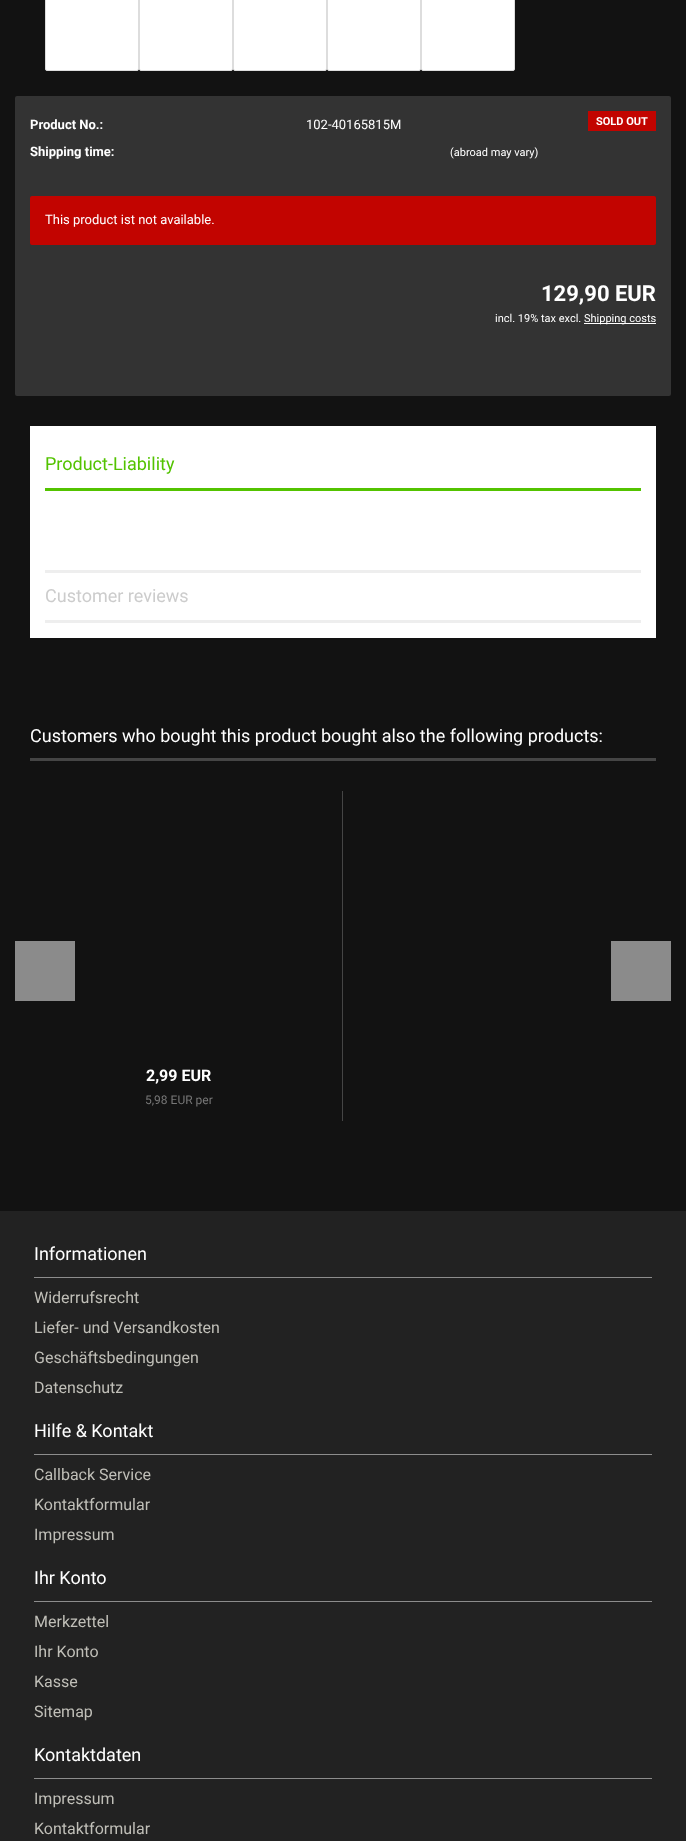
(async () => {
    const canvas = document.querySelector("canvas");
    canvas.width = 686;
    canvas.height = 1841;
    const context = canvas.getContext("2d");
    context.miterLimit = 4;
    context.fontKerning = "normal";
    function write(s, x, y, font, color) {
        context.font = font;
        context.fillStyle = color;
        context.fillText(s, x, y);
    }
    function block(x, y, w, h, color) {
        context.fillStyle = color;
        context.fillRect(x, y, w, h);
    }
    function card(x, y, w, h, r, color) {
        context.fillStyle = color;
        context.beginPath();
        context.roundRect(x, y, w, h, r);
        context.fill();
    }

    block(0, 0, 686, 1841, "rgb(18, 18, 18)");
    context.fillStyle = "rgb(255, 255, 255)";
    context.beginPath();
    context.roundRect(45.5, -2.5, 93, 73, 1.5);
    context.fill();
    context.strokeStyle = "rgb(221, 221, 221)";
    context.stroke();
    context.beginPath();
    context.roundRect(139.5, -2.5, 93, 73, 1.5);
    context.fill();
    context.stroke();
    context.beginPath();
    context.roundRect(233.5, -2.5, 93, 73, 1.5);
    context.fill();
    context.stroke();
    context.beginPath();
    context.roundRect(327.5, -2.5, 93, 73, 1.5);
    context.fill();
    context.stroke();
    context.beginPath();
    context.roundRect(421.5, -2.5, 93, 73, 1.5);
    context.fill();
    context.stroke();
    card(15, 96, 656, 300, 2, "rgb(51, 51, 51)");
    block(588, 111, 68, 20, "rgb(194, 4, 0)");
    write("SOLD OUT", 596, 125, "bold 11px Roboto", "rgb(255, 255, 255)");
    write("Product No.:", 30, 129, "bold 13px Roboto", "rgb(255, 255, 255)");
    write("102-40165815M", 306, 129, "13px Roboto", "rgb(255, 255, 255)");
    write("Shipping time:", 30, 156, "bold 13px Roboto", "rgb(255, 255, 255)");
    write("(abroad may vary)", 450, 156, "11px Roboto", "rgb(255, 255, 255)");
    card(30, 196, 626, 49, 2, "rgb(194, 4, 0)");
    write("This product ist not available.", 45, 224, "13px Roboto", "rgb(255, 255, 255)");
    write("129,90 EUR", 541, 301, "bold 22px Roboto", "rgb(255, 255, 255)");
    write("incl. 19% tax excl.", 495, 322, "11px Roboto", "rgb(255, 255, 255)");
    block(584, 323, 72, 1, "rgb(255, 255, 255)");
    write("Shipping costs", 584, 322, "11px Roboto", "rgb(255, 255, 255)");
    block(30, 426, 626, 212, "rgb(255, 255, 255)");
    block(45, 488, 596, 3, "rgb(83, 195, 0)");
    write("Product-Liability", 45, 470, "18px Roboto", "rgb(83, 195, 0)");
    block(45, 570, 596, 3, "rgb(238, 238, 238)");
    block(45, 620, 596, 3, "rgb(238, 238, 238)");
    write("Customer reviews", 45, 602, "18px Roboto", "rgb(204, 204, 204)");
    block(30, 758, 626, 3, "rgb(69, 69, 69)");
    write("Customers who bought this product bought also the following products:", 30, 742, "18px Roboto", "rgb(255, 255, 255)");
    block(15, 941, 60, 60, "rgb(139, 139, 139)");
    block(611, 941, 60, 60, "rgb(139, 139, 139)");
    block(342, 791, 1, 330, "rgb(69, 69, 69)");
    write("2,99 EUR", 146, 1081, "bold 16px Roboto", "rgb(255, 255, 255)");
    write("5,98 EUR per", 145, 1104, "12px Roboto", "rgb(119, 119, 119)");
    block(0, 1211, 686, 630, "rgb(34, 34, 34)");
    block(34, 1277, 618, 1, "rgb(141, 141, 141)");
    write("Informationen", 34, 1260, "18px Roboto", "rgb(255, 255, 255)");
    write("Widerrufsrecht", 34, 1303, "16px Roboto", "rgb(192, 191, 184)");
    write("Liefer- und Versandkosten", 34, 1333, "16px Roboto", "rgb(192, 191, 184)");
    write("Geschäftsbedingungen", 34, 1363, "16px Roboto", "rgb(192, 191, 184)");
    write("Datenschutz", 34, 1393, "16px Roboto", "rgb(192, 191, 184)");
    block(34, 1454, 618, 1, "rgb(141, 141, 141)");
    write("Hilfe & Kontakt", 34, 1437, "18px Roboto", "rgb(255, 255, 255)");
    write("Callback Service", 34, 1480, "16px Roboto", "rgb(192, 191, 184)");
    write("Kontaktformular", 34, 1510, "16px Roboto", "rgb(192, 191, 184)");
    write("Impressum", 34, 1540, "16px Roboto", "rgb(192, 191, 184)");
    block(34, 1601, 618, 1, "rgb(141, 141, 141)");
    write("Ihr Konto", 34, 1584, "18px Roboto", "rgb(255, 255, 255)");
    write("Merkzettel", 34, 1627, "16px Roboto", "rgb(192, 191, 184)");
    write("Ihr Konto", 34, 1657, "16px Roboto", "rgb(192, 191, 184)");
    write("Kasse", 34, 1687, "16px Roboto", "rgb(192, 191, 184)");
    write("Sitemap", 34, 1717, "16px Roboto", "rgb(192, 191, 184)");
    block(34, 1778, 618, 1, "rgb(141, 141, 141)");
    write("Kontaktdaten", 34, 1761, "18px Roboto", "rgb(255, 255, 255)");
    write("Impressum", 34, 1804, "16px Roboto", "rgb(192, 191, 184)");
    write("Kontaktformular", 34, 1834, "16px Roboto", "rgb(192, 191, 184)");
})();
